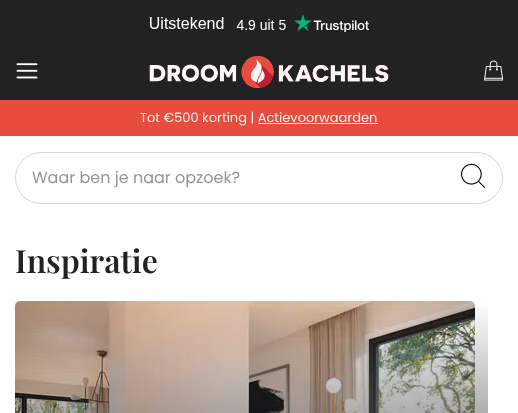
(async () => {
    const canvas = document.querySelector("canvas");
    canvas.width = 518;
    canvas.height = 413;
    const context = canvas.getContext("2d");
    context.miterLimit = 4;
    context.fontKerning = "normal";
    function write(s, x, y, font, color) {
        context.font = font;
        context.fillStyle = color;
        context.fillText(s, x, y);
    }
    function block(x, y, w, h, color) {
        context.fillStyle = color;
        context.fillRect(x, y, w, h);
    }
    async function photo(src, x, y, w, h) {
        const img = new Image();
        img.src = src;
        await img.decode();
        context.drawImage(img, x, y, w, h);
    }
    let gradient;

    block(0, 0, 518, 413, "rgb(255, 255, 255)");
    block(0, 0, 518, 100, "rgb(34, 34, 34)");
    await photo("media/1.png", 149, 14, 220, 18);
    await photo("media/2.png", 16, 63, 22, 16);
    await photo("media/3.png", 149, 56, 240, 32);
    await photo("media/4.png", 484, 60, 19, 21);
    block(0, 100, 518, 36, "rgb(231, 76, 61)");
    write("Tot €500 korting | Actievoorwaarden", 140, 122, "13px Poppins", "rgb(236, 240, 241)");
    block(258, 123, 120, 1, "rgb(236, 240, 241)");
    context.beginPath();
    context.roundRect(15.5, 152.5, 487, 51, 25.5);
    context.strokeStyle = "rgb(216, 216, 216)";
    context.stroke();
    write("Waar ben je naar opzoek?", 32, 183, "16px Poppins", "rgb(148, 148, 148)");
    await photo("media/5.png", 461, 163, 24, 25);
    write("Inspiratie", 15, 273, "600 32px Playfair Display", "rgb(34, 34, 34)");
    await photo("media/6.png", 15, 301, 460, 112);
    gradient = context.createLinearGradient(251, 301, 252, 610);
    gradient.addColorStop(0, "rgba(34, 34, 34, 0)");
    gradient.addColorStop(1, "rgb(34, 34, 34)");
    context.fillStyle = gradient;
    context.fillRect(15, 307, 473, 106);
})();
